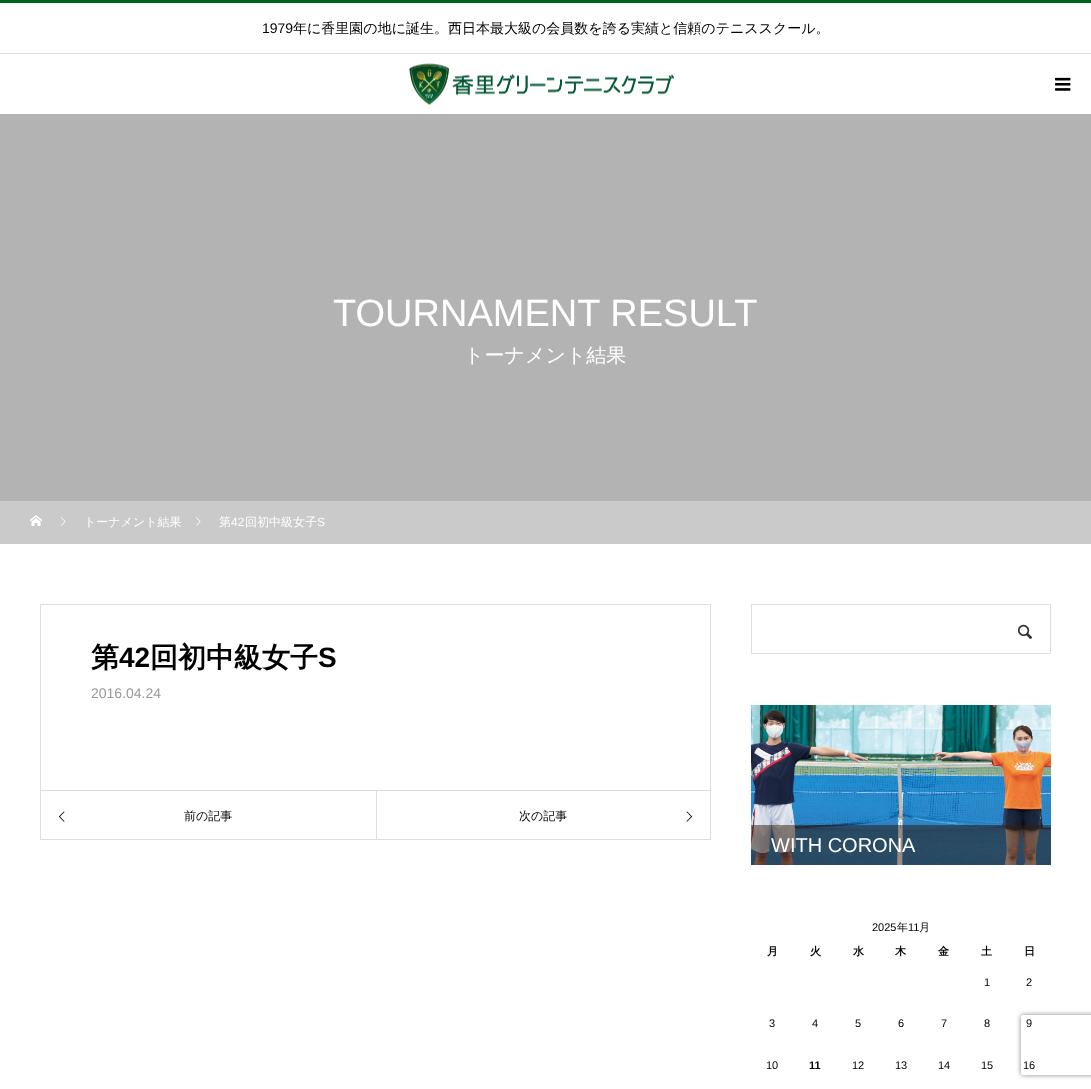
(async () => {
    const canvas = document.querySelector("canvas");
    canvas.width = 1091;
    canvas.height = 1089;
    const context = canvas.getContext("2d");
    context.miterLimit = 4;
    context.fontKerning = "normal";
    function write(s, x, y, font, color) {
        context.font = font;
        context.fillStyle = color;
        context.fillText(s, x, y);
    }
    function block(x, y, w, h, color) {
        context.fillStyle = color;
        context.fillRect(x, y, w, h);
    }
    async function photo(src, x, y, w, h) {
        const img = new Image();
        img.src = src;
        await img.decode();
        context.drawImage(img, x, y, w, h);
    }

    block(0, 0, 1091, 1089, "rgb(255, 255, 255)");
    block(0, 0, 1091, 3, "rgb(0, 99, 29)");
    block(0, 53, 1091, 1, "rgb(221, 221, 221)");
    write("1979", 262, 33, "14px Liberation Sans", "rgb(0, 0, 0)");
    write("年に香里園の地に誕生。西日本最大級の会員数を誇る実績と信頼のテニススクール。", 293, 33, "500 14px WenQuanYi Zen Hei", "rgb(0, 0, 0)");
    await photo("media/1.png", 409, 63, 265, 42);
    await photo("media/2.png", 1055, 77, 16, 14);
    block(0, 114, 1091, 387, "rgb(179, 179, 179)");
    write("TOURNAMENT RESULT", 333, 326, "38px Liberation Sans", "rgb(255, 255, 255)");
    write("トーナメント結果", 464, 362, "500 20px WenQuanYi Zen Hei", "rgb(255, 255, 255)");
    block(0, 501, 1091, 43, "rgb(202, 202, 202)");
    await photo("media/3.png", 30, 515, 12, 11);
    await photo("media/4.png", 61, 517, 5, 9);
    write("トーナメント結果", 84, 526, "500 12px WenQuanYi Zen Hei", "rgb(255, 255, 255)");
    await photo("media/4.png", 196, 517, 5, 9);
    write("第", 219, 526, "500 12px WenQuanYi Zen Hei", "rgb(255, 255, 255)");
    write("42", 231, 526, "12px Liberation Sans", "rgb(255, 255, 255)");
    write("回初中級女子", 245, 526, "500 12px WenQuanYi Zen Hei", "rgb(255, 255, 255)");
    write("S", 317, 526, "12px Liberation Sans", "rgb(255, 255, 255)");
    context.strokeStyle = "rgb(221, 221, 221)";
    context.strokeRect(40.5, 604.5, 670, 235);
    write("第", 91, 667, "bold 28px WenQuanYi Zen Hei", "rgb(0, 0, 0)");
    write("42", 119, 667, "bold 28px Liberation Sans", "rgb(0, 0, 0)");
    write("回初中級女子", 150, 667, "bold 28px WenQuanYi Zen Hei", "rgb(0, 0, 0)");
    write("S", 318, 667, "bold 28px Liberation Sans", "rgb(0, 0, 0)");
    write("2016.04.24", 91, 698, "14px Liberation Sans", "rgb(153, 153, 153)");
    block(40, 790, 336, 1, "rgb(221, 221, 221)");
    await photo("media/5.png", 59, 811, 6, 11);
    write("前の記事", 184, 820, "500 12px WenQuanYi Zen Hei", "rgb(0, 0, 0)");
    context.strokeRect(376.5, 790.5, 334, 49);
    write("次の記事", 519, 820, "500 12px WenQuanYi Zen Hei", "rgb(0, 0, 0)");
    await photo("media/6.png", 686, 811, 6, 11);
    context.strokeRect(751.5, 604.5, 299, 49);
    await photo("media/7.png", 1017, 624, 16, 15);
    await photo("media/8.png", 751, 705, 300, 160);
    block(751, 825, 300, 40, "rgba(52, 30, 9, 0.5)");
    write("WITH CORONA", 771, 852, "20px Liberation Sans", "rgb(255, 255, 255)");
    write("2025", 872, 931, "11px Liberation Sans", "rgb(0, 0, 0)");
    write("年", 897, 931, "500 11px WenQuanYi Zen Hei", "rgb(0, 0, 0)");
    write("11", 908, 931, "11px Liberation Sans", "rgb(0, 0, 0)");
    write("月", 919, 931, "500 11px WenQuanYi Zen Hei", "rgb(0, 0, 0)");
    write("月", 767, 955, "bold 11px WenQuanYi Zen Hei", "rgb(0, 0, 0)");
    write("火", 810, 955, "bold 11px WenQuanYi Zen Hei", "rgb(0, 0, 0)");
    write("水", 853, 955, "bold 11px WenQuanYi Zen Hei", "rgb(0, 0, 0)");
    write("木", 895, 955, "bold 11px WenQuanYi Zen Hei", "rgb(0, 0, 0)");
    write("金", 938, 955, "bold 11px WenQuanYi Zen Hei", "rgb(0, 0, 0)");
    write("土", 981, 955, "bold 11px WenQuanYi Zen Hei", "rgb(0, 0, 0)");
    write("日", 1024, 955, "bold 11px WenQuanYi Zen Hei", "rgb(0, 0, 0)");
    write("1", 984, 986, "11px Liberation Sans", "rgb(0, 0, 0)");
    write("2", 1026, 986, "11px Liberation Sans", "rgb(0, 0, 0)");
    write("3", 769, 1027, "11px Liberation Sans", "rgb(0, 0, 0)");
    write("4", 812, 1027, "11px Liberation Sans", "rgb(0, 0, 0)");
    write("5", 855, 1027, "11px Liberation Sans", "rgb(0, 0, 0)");
    write("6", 898, 1027, "11px Liberation Sans", "rgb(0, 0, 0)");
    write("7", 941, 1027, "11px Liberation Sans", "rgb(0, 0, 0)");
    write("8", 984, 1027, "11px Liberation Sans", "rgb(0, 0, 0)");
    write("9", 1026, 1027, "11px Liberation Sans", "rgb(0, 0, 0)");
    write("10", 766, 1069, "11px Liberation Sans", "rgb(0, 0, 0)");
    write("11", 809, 1069, "bold 11px Liberation Sans", "rgb(0, 0, 0)");
    write("12", 852, 1069, "11px Liberation Sans", "rgb(0, 0, 0)");
    write("13", 895, 1069, "11px Liberation Sans", "rgb(0, 0, 0)");
    write("14", 938, 1069, "11px Liberation Sans", "rgb(0, 0, 0)");
    write("15", 981, 1069, "11px Liberation Sans", "rgb(0, 0, 0)");
    write("16", 1023, 1069, "11px Liberation Sans", "rgb(0, 0, 0)");
    context.save();
    context.beginPath();
    context.moveTo(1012, 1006);
    context.lineTo(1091, 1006);
    context.lineTo(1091, 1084);
    context.lineTo(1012, 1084);
    context.closePath();
    context.moveTo(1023, 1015);
    context.lineTo(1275, 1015);
    context.bezierCurveTo(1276, 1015, 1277, 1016, 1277, 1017);
    context.lineTo(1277, 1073);
    context.bezierCurveTo(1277, 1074, 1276, 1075, 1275, 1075);
    context.lineTo(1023, 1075);
    context.bezierCurveTo(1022, 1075, 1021, 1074, 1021, 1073);
    context.lineTo(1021, 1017);
    context.bezierCurveTo(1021, 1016, 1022, 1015, 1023, 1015);
    context.closePath();
    context.clip("evenodd");
    context.fillStyle = "rgb(128, 128, 128)";
    context.filter = "blur(2.5px)";
    context.beginPath();
    context.roundRect(1021, 1015, 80, 60, 2);
    context.fill();
    context.filter = "none";
    context.restore();
})();
